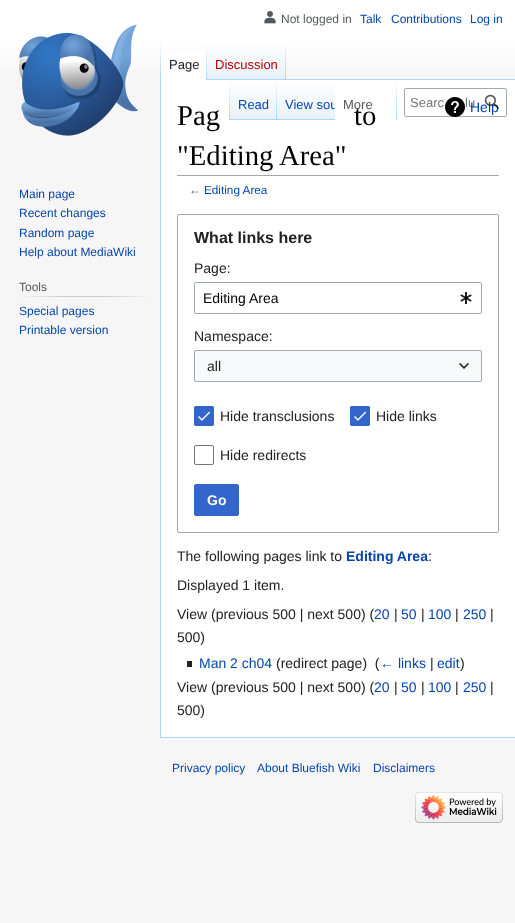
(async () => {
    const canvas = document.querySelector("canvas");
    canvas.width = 515;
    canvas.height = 923;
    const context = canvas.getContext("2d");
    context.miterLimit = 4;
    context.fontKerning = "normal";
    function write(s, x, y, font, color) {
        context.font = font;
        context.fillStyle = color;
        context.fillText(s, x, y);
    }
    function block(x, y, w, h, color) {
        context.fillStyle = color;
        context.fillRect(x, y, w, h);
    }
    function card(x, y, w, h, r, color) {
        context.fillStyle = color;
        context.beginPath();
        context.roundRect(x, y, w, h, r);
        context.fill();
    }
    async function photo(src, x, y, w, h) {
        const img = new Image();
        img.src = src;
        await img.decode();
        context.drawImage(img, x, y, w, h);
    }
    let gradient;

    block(0, 0, 515, 923, "rgb(246, 246, 246)");
    gradient = context.createLinearGradient(258, 0, 258, 80);
    gradient.addColorStop(0.5, "rgb(255, 255, 255)");
    gradient.addColorStop(1, "rgb(246, 246, 246)");
    context.fillStyle = gradient;
    context.fillRect(0, 0, 515, 69);
    await photo("media/1.png", 264, 11, 12, 13);
    write("Not logged in", 281, 23, "12px Liberation Sans", "rgb(84, 89, 93)");
    write("Talk", 360, 23, "12px Liberation Sans", "rgb(6, 69, 173)");
    write("Contributions", 391, 23, "12px Liberation Sans", "rgb(6, 69, 173)");
    write("Log in", 470, 23, "12px Liberation Sans", "rgb(6, 69, 173)");
    block(160, 737, 355, 1, "rgb(167, 215, 249)");
    block(160, 79, 1, 659, "rgb(167, 215, 249)");
    gradient = context.createLinearGradient(161, 40, 161, 80);
    gradient.addColorStop(0, "rgba(167, 215, 249, 0)");
    gradient.addColorStop(1, "rgb(167, 215, 249)");
    context.fillStyle = gradient;
    context.fillRect(160, 40, 1, 40);
    block(161, 51, 45, 29, "rgb(255, 255, 255)");
    gradient = context.createLinearGradient(207, 40, 207, 80);
    gradient.addColorStop(0, "rgb(255, 255, 255)");
    gradient.addColorStop(1, "rgb(167, 215, 249)");
    context.fillStyle = gradient;
    context.fillRect(206, 40, 1, 40);
    write("Page", 169, 69, "13px Liberation Sans", "rgb(32, 33, 34)");
    gradient = context.createLinearGradient(247, 80, 247, 40);
    gradient.addColorStop(0, "rgb(119, 193, 246)");
    gradient.addColorStop(0.03, "rgb(232, 242, 248)");
    gradient.addColorStop(1, "rgb(255, 255, 255)");
    context.fillStyle = gradient;
    context.fillRect(207, 46, 79, 34);
    gradient = context.createLinearGradient(286, 40, 286, 80);
    gradient.addColorStop(0, "rgba(167, 215, 249, 0)");
    gradient.addColorStop(1, "rgb(167, 215, 249)");
    context.fillStyle = gradient;
    context.fillRect(285, 40, 1, 40);
    write("Discussion", 215, 69, "13px Liberation Sans", "rgb(186, 0, 0)");
    block(161, 80, 354, 657, "rgb(255, 255, 255)");
    gradient = context.createLinearGradient(230, 80, 230, 120);
    gradient.addColorStop(0, "rgba(167, 215, 249, 0)");
    gradient.addColorStop(1, "rgb(167, 215, 249)");
    context.fillStyle = gradient;
    context.fillRect(229, 80, 1, 40);
    gradient = context.createLinearGradient(254, 120, 254, 80);
    gradient.addColorStop(0, "rgb(119, 193, 246)");
    gradient.addColorStop(0.03, "rgb(232, 242, 248)");
    gradient.addColorStop(1, "rgb(255, 255, 255)");
    context.fillStyle = gradient;
    context.fillRect(230, 84, 47, 36);
    gradient = context.createLinearGradient(277, 80, 277, 120);
    gradient.addColorStop(0, "rgba(167, 215, 249, 0)");
    gradient.addColorStop(1, "rgb(167, 215, 249)");
    context.fillStyle = gradient;
    context.fillRect(276, 80, 1, 40);
    write("Read", 238, 109, "13px Liberation Sans", "rgb(6, 69, 173)");
    gradient = context.createLinearGradient(306, 120, 306, 80);
    gradient.addColorStop(0, "rgb(119, 193, 246)");
    gradient.addColorStop(0.03, "rgb(232, 242, 248)");
    gradient.addColorStop(1, "rgb(255, 255, 255)");
    context.fillStyle = gradient;
    context.fillRect(277, 84, 58, 36);
    context.save();
    context.beginPath();
    context.rect(277, 80, 58, 40);
    context.clip();
    write("View sou", 285, 109, "13px Liberation Sans", "rgb(6, 69, 173)");
    context.restore();
    gradient = context.createLinearGradient(397, 80, 397, 120);
    gradient.addColorStop(0, "rgb(255, 255, 255)");
    gradient.addColorStop(1, "rgb(167, 215, 249)");
    context.fillStyle = gradient;
    context.fillRect(396, 80, 1, 40);
    write("More", 343, 109, "13px Liberation Sans", "rgb(84, 89, 93)");
    context.beginPath();
    context.roundRect(404.5, 88.5, 102, 28, 1.5);
    context.strokeStyle = "rgb(162, 169, 177)";
    context.stroke();
    write("Searc", 410, 107, "13px Liberation Sans", "rgb(114, 119, 125)");
    write("lu", 465, 107, "13px Liberation Sans", "rgb(114, 119, 125)");
    write("Help", 470, 112, "14px Liberation Sans", "rgb(6, 69, 173)");
    await photo("media/2.png", 484, 94, 15, 15);
    await photo("media/3.png", 19, 24, 120, 112);
    write("Main page", 19, 198, "12px Liberation Sans", "rgb(6, 69, 173)");
    write("Recent changes", 19, 217, "12px Liberation Sans", "rgb(6, 69, 173)");
    write("Random page", 19, 237, "12px Liberation Sans", "rgb(6, 69, 173)");
    write("Help about MediaWiki", 19, 256, "12px Liberation Sans", "rgb(6, 69, 173)");
    gradient = context.createLinearGradient(19, 297, 150, 297);
    gradient.addColorStop(0, "rgb(246, 246, 246)");
    gradient.addColorStop(0.33, "rgb(200, 204, 209)");
    gradient.addColorStop(0.66, "rgb(200, 204, 209)");
    gradient.addColorStop(1, "rgb(246, 246, 246)");
    context.fillStyle = gradient;
    context.fillRect(19, 296, 131, 1);
    write("Tools", 19, 291, "12px Liberation Sans", "rgb(84, 89, 93)");
    write("Special pages", 19, 315, "12px Liberation Sans", "rgb(6, 69, 173)");
    write("Printable version", 19, 334, "12px Liberation Sans", "rgb(6, 69, 173)");
    block(286, 79, 229, 1, "rgb(167, 215, 249)");
    block(177, 175, 322, 1, "rgb(162, 169, 177)");
    write("Pag", 177, 125, "28.75px Liberation Serif", "rgb(0, 0, 0)");
    write("to", 354, 125, "28.75px Liberation Serif", "rgb(0, 0, 0)");
    write("\"Editing Area\"", 177, 165, "28.75px Liberation Serif", "rgb(0, 0, 0)");
    await photo("media/4.png", 445, 97, 20, 20);
    write("←", 189, 194, "11.75px Liberation Sans", "rgb(84, 89, 93)");
    write("Editing Area", 204, 194, "11.75px Liberation Sans", "rgb(6, 69, 173)");
    context.beginPath();
    context.roundRect(177.5, 214.5, 321, 318, 1.5);
    context.stroke();
    write("What links here", 194, 243, "bold 16px Liberation Sans", "rgb(32, 33, 34)");
    write("Page:", 194, 273, "14px Liberation Sans", "rgb(32, 33, 34)");
    context.beginPath();
    context.roundRect(194.5, 282.5, 287, 31, 1.5);
    context.stroke();
    write("Editing Area", 203, 303, "14px Liberation Sans", "rgb(0, 0, 0)");
    await photo("media/5.png", 460, 292, 12, 12);
    write("Namespace:", 194, 341, "14px Liberation Sans", "rgb(32, 33, 34)");
    block(194, 350, 288, 32, "rgb(248, 249, 250)");
    context.beginPath();
    context.roundRect(194.5, 350.5, 287, 31, 1.5);
    context.stroke();
    write("all", 207, 371, "14px Liberation Sans", "rgb(32, 33, 34)");
    await photo("media/6.png", 459, 363, 10, 6);
    card(194, 406, 20, 20, 2, "rgb(51, 102, 204)");
    await photo("media/7.png", 198, 411, 13, 10);
    context.beginPath();
    context.roundRect(194.5, 406.5, 19, 19, 1.5);
    context.strokeStyle = "rgb(51, 102, 204)";
    context.stroke();
    write("Hide transclusions", 220, 421, "14px Liberation Sans", "rgb(32, 33, 34)");
    card(350, 406, 20, 20, 2, "rgb(51, 102, 204)");
    await photo("media/7.png", 354, 411, 13, 10);
    context.beginPath();
    context.roundRect(350.5, 406.5, 19, 19, 1.5);
    context.stroke();
    write("Hide links", 376, 421, "14px Liberation Sans", "rgb(32, 33, 34)");
    context.beginPath();
    context.roundRect(194.5, 445.5, 19, 19, 1.5);
    context.strokeStyle = "rgb(114, 119, 125)";
    context.stroke();
    write("Hide redirects", 220, 460, "14px Liberation Sans", "rgb(32, 33, 34)");
    context.fillStyle = "rgb(51, 102, 204)";
    context.beginPath();
    context.roundRect(194.5, 484.5, 44, 31, 1.5);
    context.fill();
    context.strokeStyle = "rgb(51, 102, 204)";
    context.stroke();
    write("Go", 207, 505, "bold 14px Liberation Sans", "rgb(255, 255, 255)");
    write("The following pages link to", 177, 561, "14px Liberation Sans", "rgb(32, 33, 34)");
    write("Editing Area", 346, 561, "bold 14px Liberation Sans", "rgb(6, 69, 173)");
    write(":", 428, 561, "14px Liberation Sans", "rgb(32, 33, 34)");
    write("Displayed 1 item.", 177, 590, "14px Liberation Sans", "rgb(32, 33, 34)");
    write("View (previous 500 | next 500) (", 177, 619, "14px Liberation Sans", "rgb(32, 33, 34)");
    write("20", 374, 619, "14px Liberation Sans", "rgb(6, 69, 173)");
    write("|", 394, 619, "14px Liberation Sans", "rgb(32, 33, 34)");
    write("50", 401, 619, "14px Liberation Sans", "rgb(6, 69, 173)");
    write("|", 421, 619, "14px Liberation Sans", "rgb(32, 33, 34)");
    write("100", 428, 619, "14px Liberation Sans", "rgb(6, 69, 173)");
    write("|", 455, 619, "14px Liberation Sans", "rgb(32, 33, 34)");
    write("250", 463, 619, "14px Liberation Sans", "rgb(6, 69, 173)");
    write("|", 490, 619, "14px Liberation Sans", "rgb(32, 33, 34)");
    write("500)", 177, 642, "14px Liberation Sans", "rgb(32, 33, 34)");
    block(187, 661, 5, 6, "rgb(32, 33, 34)");
    write("Man 2 ch04", 199, 668, "14px Liberation Sans", "rgb(6, 69, 173)");
    write("(redirect page)  (", 276, 668, "14px Liberation Sans", "rgb(32, 33, 34)");
    write("← links", 380, 668, "14px Liberation Sans", "rgb(6, 69, 173)");
    write("|", 430, 668, "14px Liberation Sans", "rgb(32, 33, 34)");
    write("edit", 437, 668, "14px Liberation Sans", "rgb(6, 69, 173)");
    write(")", 460, 668, "14px Liberation Sans", "rgb(32, 33, 34)");
    write("View (previous 500 | next 500) (", 177, 692, "14px Liberation Sans", "rgb(32, 33, 34)");
    write("20", 374, 692, "14px Liberation Sans", "rgb(6, 69, 173)");
    write("|", 394, 692, "14px Liberation Sans", "rgb(32, 33, 34)");
    write("50", 401, 692, "14px Liberation Sans", "rgb(6, 69, 173)");
    write("|", 421, 692, "14px Liberation Sans", "rgb(32, 33, 34)");
    write("100", 428, 692, "14px Liberation Sans", "rgb(6, 69, 173)");
    write("|", 455, 692, "14px Liberation Sans", "rgb(32, 33, 34)");
    write("250", 463, 692, "14px Liberation Sans", "rgb(6, 69, 173)");
    write("|", 490, 692, "14px Liberation Sans", "rgb(32, 33, 34)");
    write("500)", 177, 715, "14px Liberation Sans", "rgb(32, 33, 34)");
    write("Privacy policy", 172, 772, "12px Liberation Sans", "rgb(6, 69, 173)");
    write("About Bluefish Wiki", 257, 772, "12px Liberation Sans", "rgb(6, 69, 173)");
    write("Disclaimers", 373, 772, "12px Liberation Sans", "rgb(6, 69, 173)");
    await photo("media/8.png", 415, 792, 88, 31);
})();
